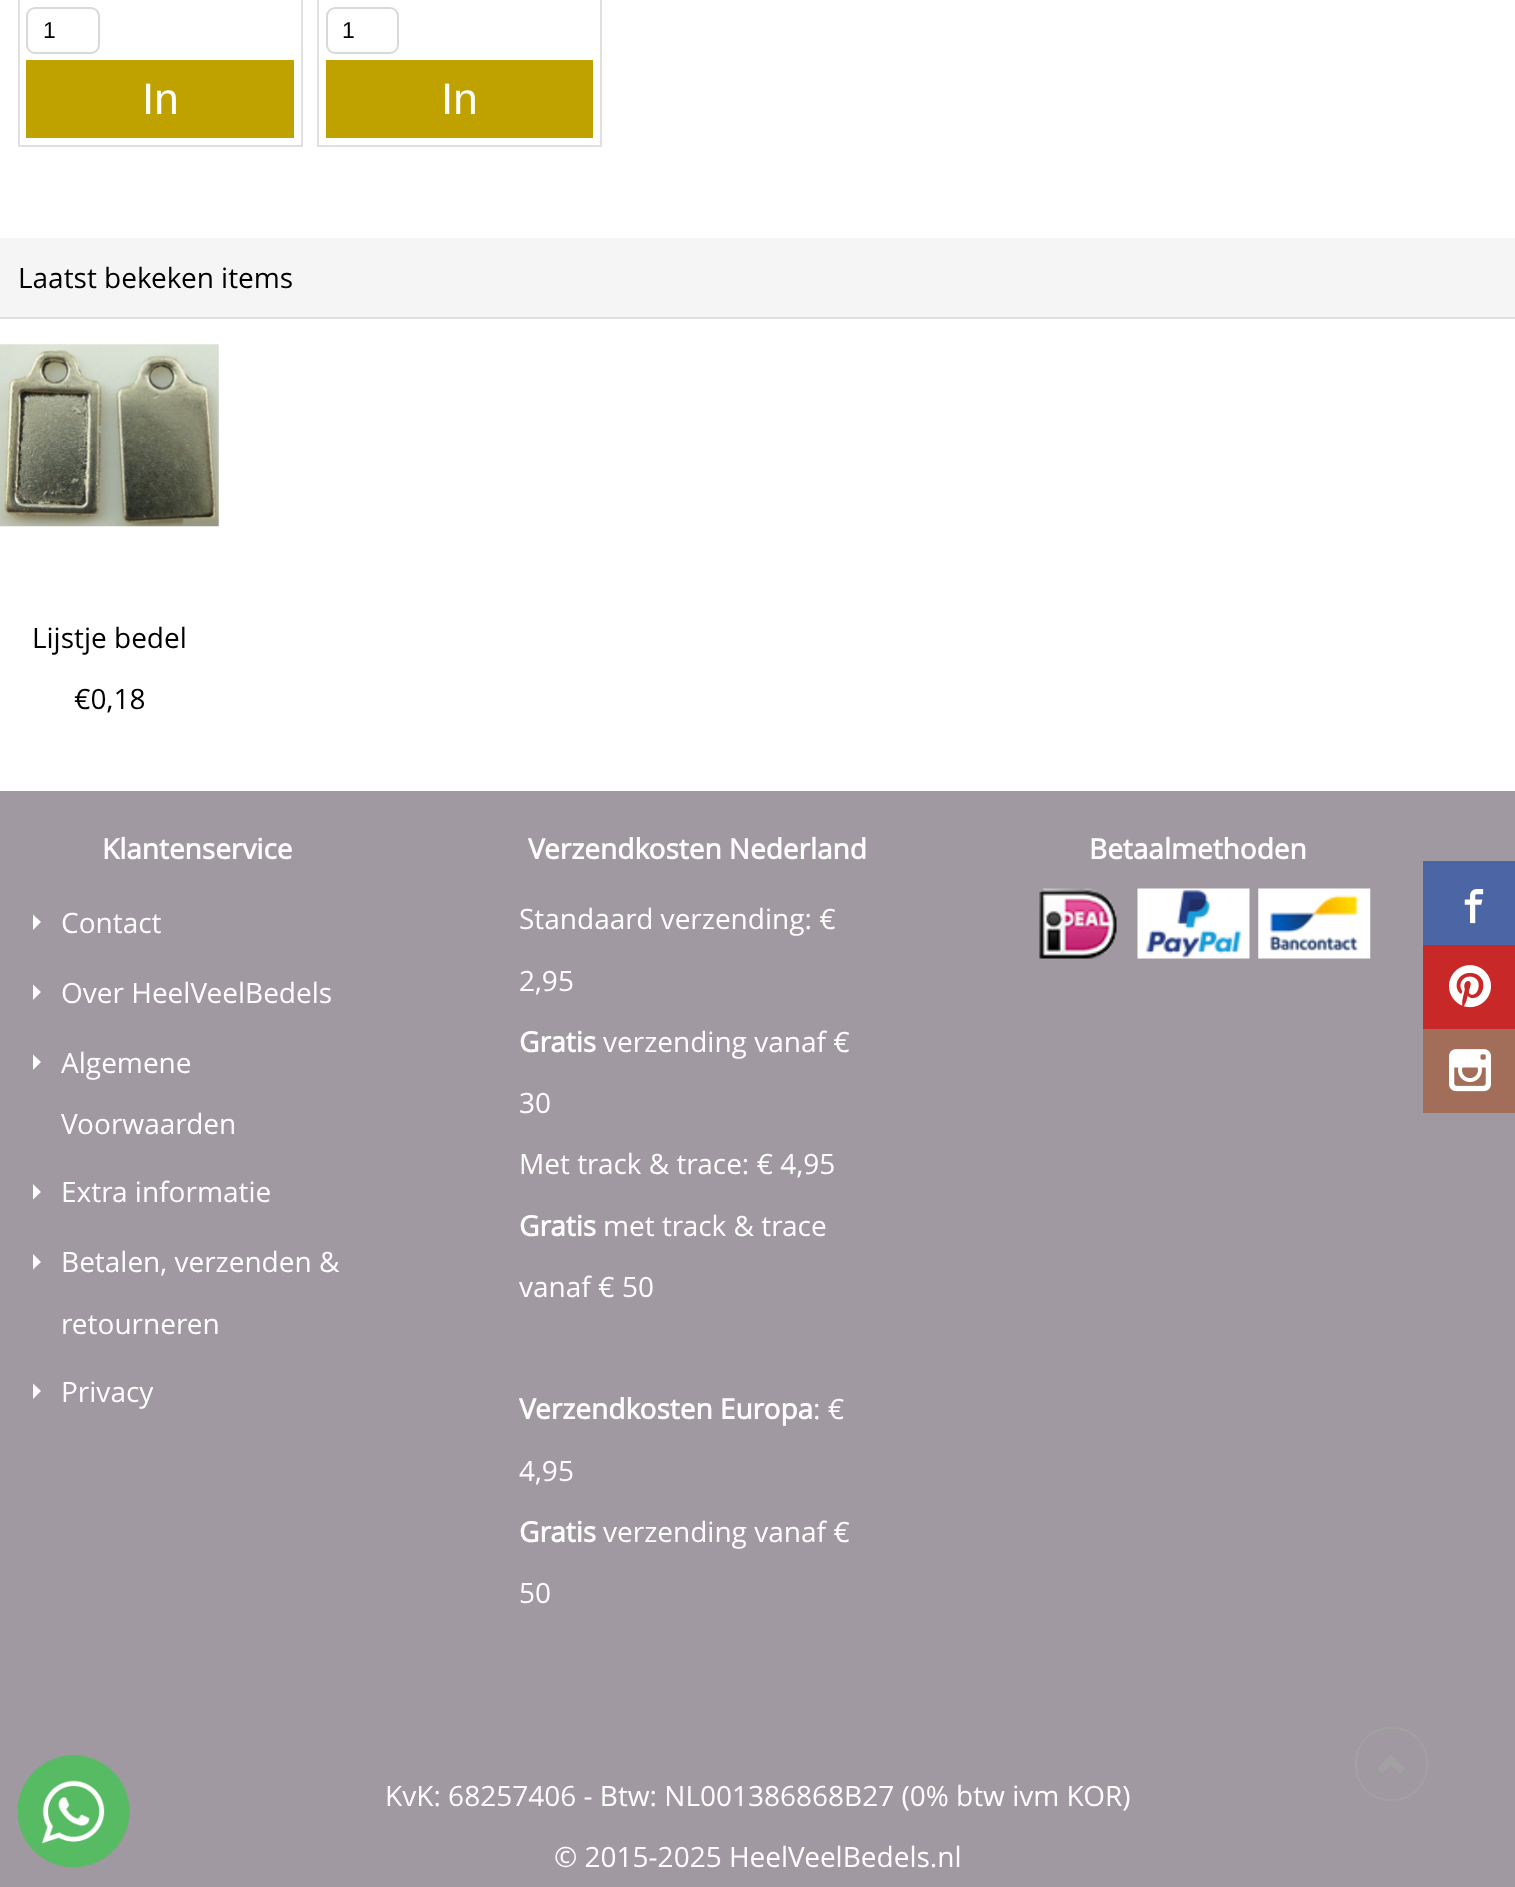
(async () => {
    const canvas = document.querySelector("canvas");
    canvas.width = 1515;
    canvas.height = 1887;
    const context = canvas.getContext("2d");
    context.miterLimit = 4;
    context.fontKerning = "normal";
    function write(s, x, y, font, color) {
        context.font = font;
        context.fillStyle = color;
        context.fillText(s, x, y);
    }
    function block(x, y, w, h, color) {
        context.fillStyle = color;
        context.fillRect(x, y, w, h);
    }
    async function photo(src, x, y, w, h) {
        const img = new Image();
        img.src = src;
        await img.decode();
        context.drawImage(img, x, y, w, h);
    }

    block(0, 0, 1515, 1887, "rgb(255, 255, 255)");
    context.strokeStyle = "rgb(224, 224, 224)";
    context.lineWidth = 2;
    context.strokeRect(19, -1, 283, 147);
    context.beginPath();
    context.roundRect(27, 8, 72, 45, 8);
    context.strokeStyle = "rgb(217, 217, 217)";
    context.stroke();
    write("1", 43, 38, "23px Liberation Sans", "rgb(0, 0, 0)");
    block(26, 60, 268, 78, "rgb(191, 162, 0)");
    write("In", 142, 114, "44px Liberation Sans", "rgb(255, 255, 255)");
    context.strokeStyle = "rgb(224, 224, 224)";
    context.strokeRect(318, -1, 283, 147);
    context.beginPath();
    context.roundRect(327, 8, 71, 45, 8);
    context.strokeStyle = "rgb(217, 217, 217)";
    context.stroke();
    write("1", 342, 38, "23px Liberation Sans", "rgb(0, 0, 0)");
    block(326, 60, 267, 78, "rgb(191, 162, 0)");
    write("In", 441, 114, "44px Liberation Sans", "rgb(255, 255, 255)");
    block(0, 238, 1515, 79, "rgb(245, 245, 245)");
    write("Laatst bekeken items", 18, 288, "28px Open Sans", "rgb(0, 0, 0)");
    block(0, 317, 1515, 2, "rgb(224, 224, 224)");
    await photo("media/1.png", 0, 344, 219, 183);
    write("Lijstje bedel", 32, 648, "28px Open Sans", "rgb(0, 0, 0)");
    write("€0,18", 74, 709, "28px Open Sans", "rgb(0, 0, 0)");
    block(0, 791, 1515, 1096, "rgb(161, 153, 161)");
    write("Klantenservice", 102, 859, "bold 28px Open Sans", "rgb(255, 255, 255)");
    context.beginPath();
    context.moveTo(33, 930);
    context.lineTo(41, 922);
    context.lineTo(33, 914.5);
    context.closePath();
    context.fill();
    write("Contact", 61, 933, "28px Open Sans", "rgb(255, 255, 255)");
    context.beginPath();
    context.moveTo(33, 1000);
    context.lineTo(41, 992);
    context.lineTo(33, 984.5);
    context.closePath();
    context.fill();
    write("Over HeelVeelBedels", 61, 1003, "28px Open Sans", "rgb(255, 255, 255)");
    context.beginPath();
    context.moveTo(33, 1070);
    context.lineTo(41, 1062);
    context.lineTo(33, 1054.5);
    context.closePath();
    context.fill();
    write("Algemene", 61, 1073, "28px Open Sans", "rgb(255, 255, 255)");
    write("Voorwaarden", 61, 1134, "28px Open Sans", "rgb(255, 255, 255)");
    context.beginPath();
    context.moveTo(33, 1199.5);
    context.lineTo(41, 1192);
    context.lineTo(33, 1184);
    context.closePath();
    context.fill();
    write("Extra informatie", 61, 1202, "28px Open Sans", "rgb(255, 255, 255)");
    context.beginPath();
    context.moveTo(33, 1269.5);
    context.lineTo(41, 1262);
    context.lineTo(33, 1254);
    context.closePath();
    context.fill();
    write("Betalen, verzenden &", 61, 1272, "28px Open Sans", "rgb(255, 255, 255)");
    write("retourneren", 61, 1334, "28px Open Sans", "rgb(255, 255, 255)");
    context.beginPath();
    context.moveTo(33, 1399);
    context.lineTo(41, 1391);
    context.lineTo(33, 1383.5);
    context.closePath();
    context.fill();
    write("Privacy", 61, 1402, "28px Open Sans", "rgb(255, 255, 255)");
    write("Verzendkosten Nederland", 528, 859, "bold 28px Open Sans", "rgb(255, 255, 255)");
    write("Standaard verzending: €", 519, 929, "28px Open Sans", "rgb(255, 255, 255)");
    write("2,95", 519, 991, "28px Open Sans", "rgb(255, 255, 255)");
    write("Gratis", 519, 1052, "bold 28px Open Sans", "rgb(255, 255, 255)");
    write("verzending vanaf €", 603, 1052, "28px Open Sans", "rgb(255, 255, 255)");
    write("30", 519, 1113, "28px Open Sans", "rgb(255, 255, 255)");
    write("Met track & trace: € 4,95", 519, 1174, "28px Open Sans", "rgb(255, 255, 255)");
    write("Gratis", 519, 1236, "bold 28px Open Sans", "rgb(255, 255, 255)");
    write("met track & trace", 603, 1236, "28px Open Sans", "rgb(255, 255, 255)");
    write("vanaf € 50", 519, 1297, "28px Open Sans", "rgb(255, 255, 255)");
    write("Verzendkosten Europa", 519, 1419, "bold 28px Open Sans", "rgb(255, 255, 255)");
    write(": €", 813, 1419, "28px Open Sans", "rgb(255, 255, 255)");
    write("4,95", 519, 1481, "28px Open Sans", "rgb(255, 255, 255)");
    write("Gratis", 519, 1542, "bold 28px Open Sans", "rgb(255, 255, 255)");
    write("verzending vanaf €", 603, 1542, "28px Open Sans", "rgb(255, 255, 255)");
    write("50", 519, 1603, "28px Open Sans", "rgb(255, 255, 255)");
    write("Betaalmethoden", 1089, 859, "bold 28px Open Sans", "rgb(255, 255, 255)");
    await photo("media/2.png", 1039, 888, 78, 71);
    await photo("media/3.png", 1137, 888, 113, 71);
    await photo("media/4.png", 1258, 888, 113, 71);
    write("KvK: 68257406 - Btw: NL001386868B27 (0% btw ivm KOR)", 385, 1806, "28px Open Sans", "rgb(255, 255, 255)");
    write("© 2015-2025 HeelVeelBedels.nl", 554, 1867, "28px Open Sans", "rgb(255, 255, 255)");
    block(1423, 861, 92, 84, "rgb(76, 101, 165)");
    await photo("media/5.png", 1464, 889, 20, 35);
    block(1423, 945, 92, 84, "rgb(200, 40, 40)");
    await photo("media/6.png", 1449, 965, 42, 43);
    block(1423, 1029, 92, 84, "rgb(162, 110, 89)");
    await photo("media/7.png", 1449, 1049, 42, 43);
    await photo("media/8.png", 17, 1755, 113, 113);
    context.beginPath();
    context.roundRect(1356, 1728, 71, 72, 34);
    context.strokeStyle = "rgb(162, 162, 162)";
    context.stroke();
    context.fillStyle = "rgb(162, 162, 162)";
    context.beginPath();
    context.moveTo(1377, 1768.5);
    context.lineTo(1382.5, 1773.5);
    context.lineTo(1391, 1765);
    context.lineTo(1400, 1773.5);
    context.lineTo(1405, 1768.5);
    context.lineTo(1391, 1754.5);
    context.closePath();
    context.fill();
})();
